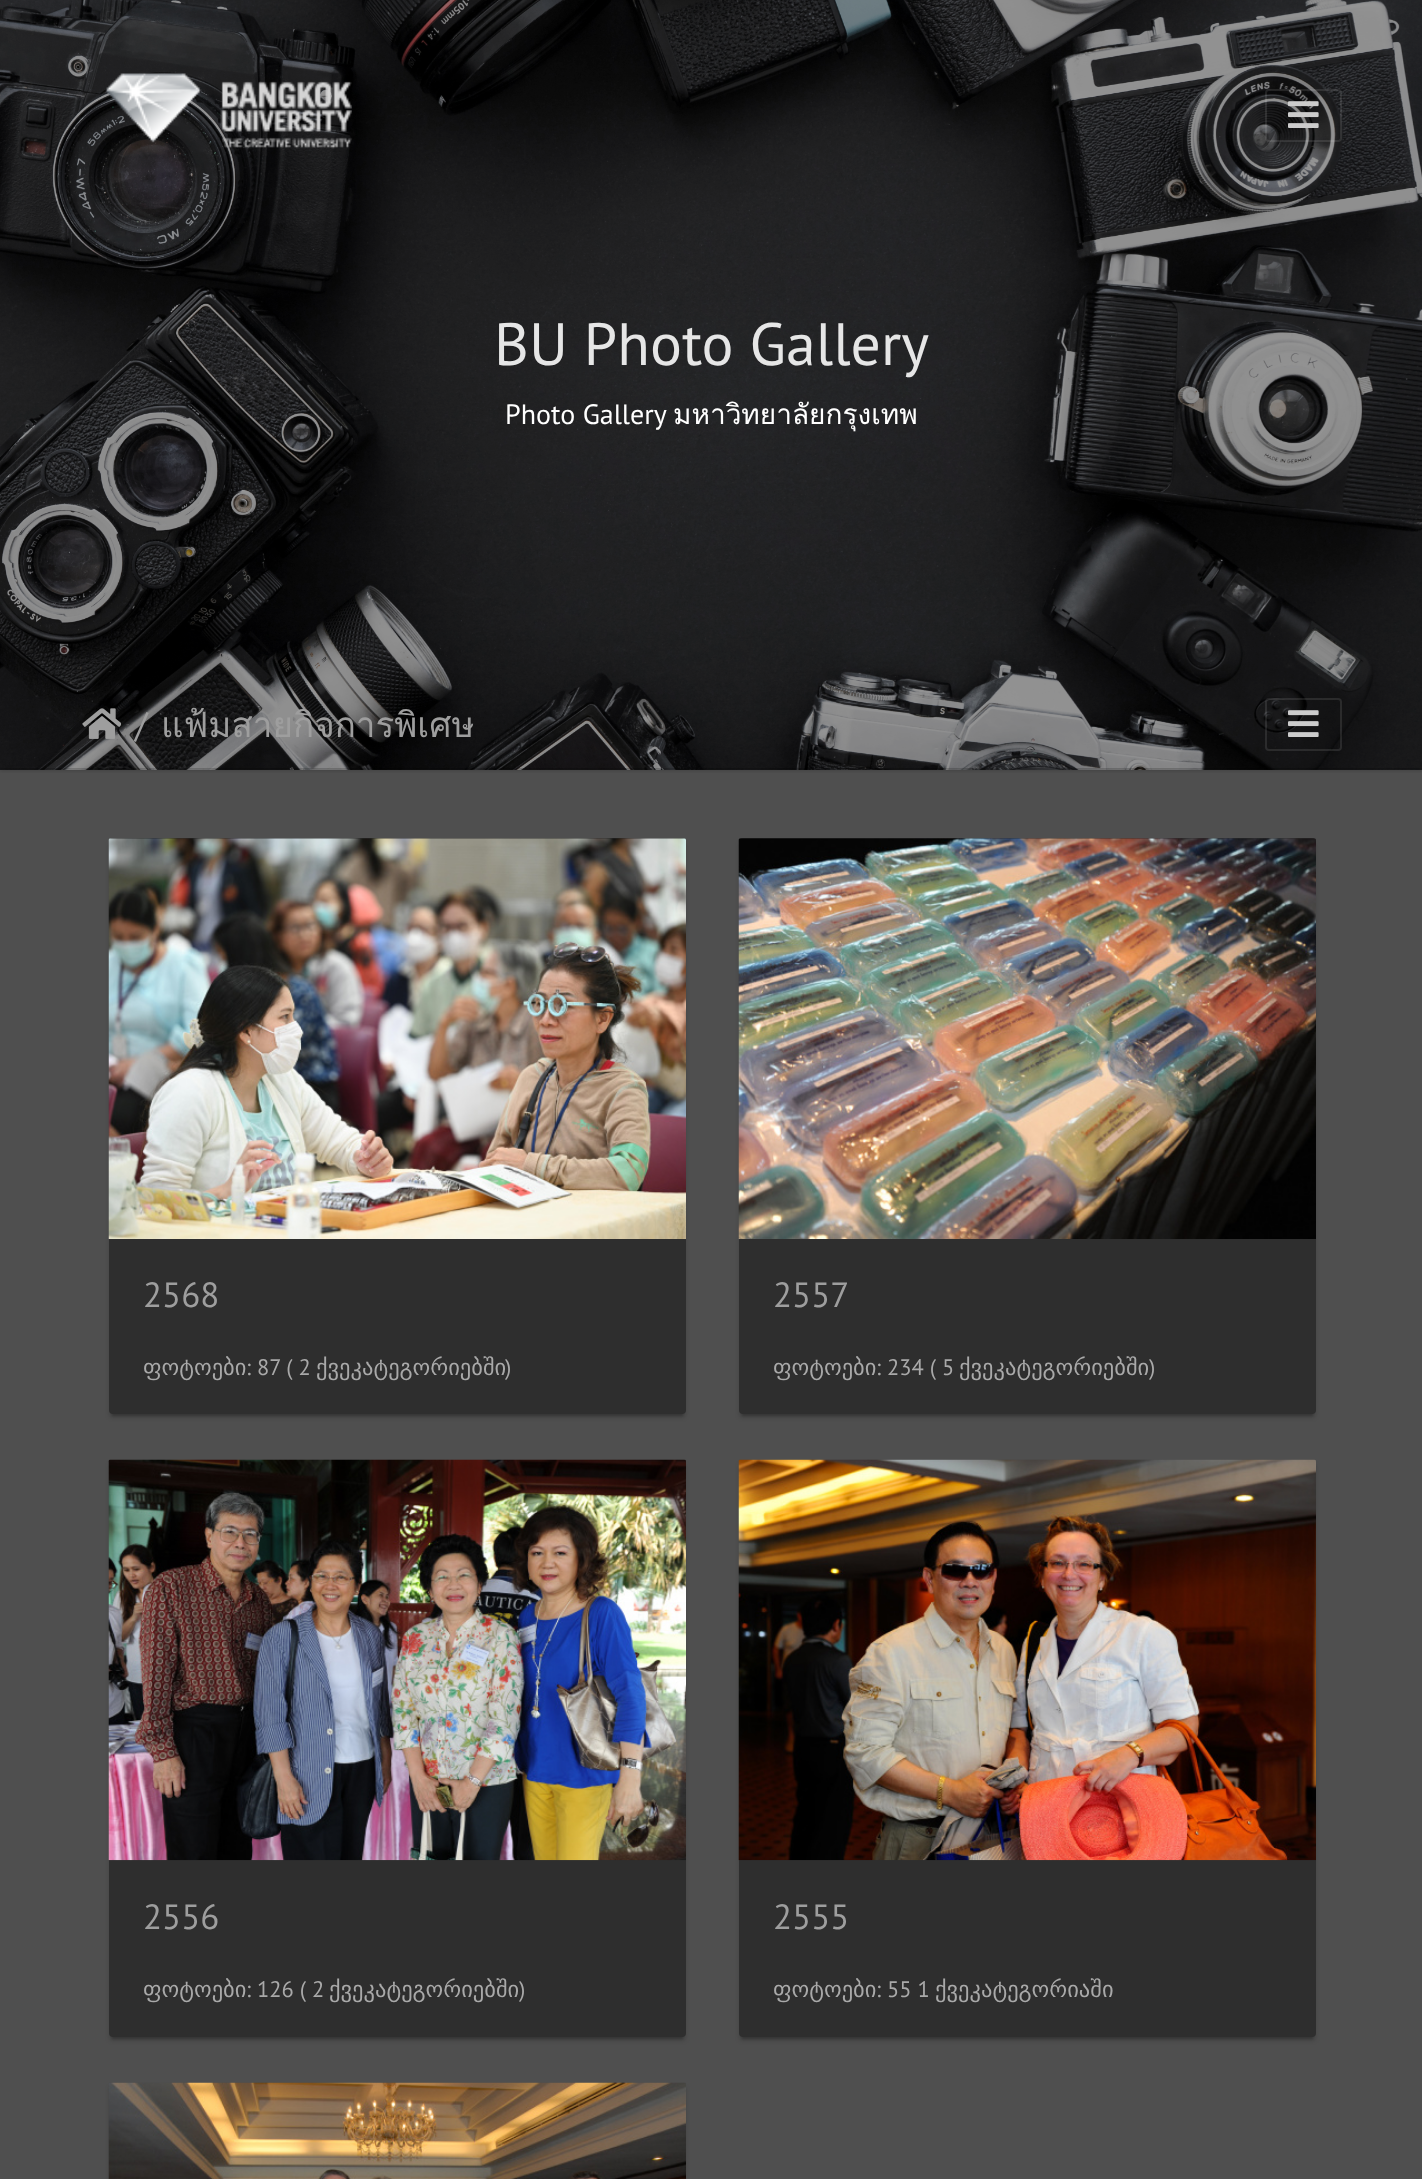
(async () => {
    const canvas = document.querySelector("canvas");
    canvas.width = 1422;
    canvas.height = 2179;
    const context = canvas.getContext("2d");
    context.miterLimit = 4;
    context.fontKerning = "normal";
    function write(s, x, y, font, color) {
        context.font = font;
        context.fillStyle = color;
        context.fillText(s, x, y);
    }
    function block(x, y, w, h, color) {
        context.fillStyle = color;
        context.fillRect(x, y, w, h);
    }
    function card(x, y, w, h, r, color) {
        context.fillStyle = color;
        context.beginPath();
        context.roundRect(x, y, w, h, r);
        context.fill();
    }
    async function photo(src, x, y, w, h) {
        const img = new Image();
        img.src = src;
        await img.decode();
        context.drawImage(img, x, y, w, h);
    }

    block(0, 0, 1422, 2179, "rgb(79, 79, 79)");
    await photo("media/3.png", 0, 0, 1422, 770);
    await photo("media/1.png", 105, 73, 247, 76);
    context.beginPath();
    context.roundRect(1266, 90, 75, 51, 3);
    context.strokeStyle = "rgba(255, 255, 255, 0.1)";
    context.lineWidth = 2;
    context.stroke();
    await photo("media/2.png", 1288, 101, 31, 27);
    write("BU Photo Gallery", 494, 365, "59.75px PT Sans", "rgb(230, 230, 230)");
    write("Photo Gallery", 505, 424, "28px PT Sans", "rgb(255, 255, 255)");
    write("มหาวิทยาลัยกรุงเทพ", 673, 424, "28px Loma", "rgb(255, 255, 255)");
    context.save();
    context.beginPath();
    context.rect(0, 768, 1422, 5);
    context.clip();
    context.fillStyle = "rgba(0, 0, 0, 0.24)";
    context.filter = "blur(2px)";
    context.beginPath();
    context.rect(0, 683, 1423, 87);
    context.fill();
    context.filter = "none";
    context.restore();
    await photo("media/4.png", 82, 708, 39, 31);
    write("/", 135, 737, "35px PT Sans", "rgb(158, 158, 158)");
    write("แฟ้มสายกิจการพิเศษ", 161, 737, "35px Loma", "rgb(158, 158, 158)");
    context.beginPath();
    context.roundRect(1266, 699, 75, 51, 3);
    context.stroke();
    await photo("media/5.png", 1288, 710, 31, 27);
    context.fillStyle = "rgba(0, 0, 0, 0.2)";
    context.filter = "blur(1px)";
    context.beginPath();
    context.rect(112, 847, 571, 569);
    context.fill();
    context.filter = "none";
    context.fillStyle = "rgba(0, 0, 0, 0.14)";
    context.filter = "blur(2px)";
    context.beginPath();
    context.roundRect(109, 842, 577, 576, 4);
    context.fill();
    context.filter = "none";
    card(109, 838, 577, 576, 4, "rgb(46, 46, 46)");
    await photo("media/6.png", 108, 838, 578, 401);
    write("2568", 143, 1307, "35px PT Sans", "rgb(158, 158, 158)");
    context.save();
    context.beginPath();
    context.rect(144, 1351, 367, 33);
    context.clip();
    write("ფოტოები", 143, 1375, "22.5px DejaVu Sans", "rgb(169, 169, 169)");
    context.restore();
    write(": 87 ( 2", 246, 1375, "22.5px PT Sans", "rgb(169, 169, 169)");
    write("ქვეკატეგორიებში", 316, 1375, "22.5px DejaVu Sans", "rgb(169, 169, 169)");
    write(")", 505, 1375, "22.5px PT Sans", "rgb(169, 169, 169)");
    context.fillStyle = "rgba(0, 0, 0, 0.2)";
    context.filter = "blur(1px)";
    context.beginPath();
    context.rect(742, 847, 571, 569);
    context.fill();
    context.filter = "none";
    context.fillStyle = "rgba(0, 0, 0, 0.14)";
    context.filter = "blur(2px)";
    context.beginPath();
    context.roundRect(739, 842, 577, 576, 4);
    context.fill();
    context.filter = "none";
    card(739, 838, 577, 576, 4, "rgb(46, 46, 46)");
    await photo("media/7.png", 738, 838, 578, 401);
    write("2557", 773, 1307, "35px PT Sans", "rgb(158, 158, 158)");
    context.save();
    context.beginPath();
    context.rect(774, 1351, 381, 33);
    context.clip();
    write("ფოტოები", 773, 1375, "22.5px DejaVu Sans", "rgb(169, 169, 169)");
    context.restore();
    write(": 234 ( 5", 876, 1375, "22.5px PT Sans", "rgb(169, 169, 169)");
    write("ქვეკატეგორიებში", 959, 1375, "22.5px DejaVu Sans", "rgb(169, 169, 169)");
    write(")", 1149, 1375, "22.5px PT Sans", "rgb(169, 169, 169)");
    context.fillStyle = "rgba(0, 0, 0, 0.2)";
    context.filter = "blur(1px)";
    context.beginPath();
    context.rect(112, 1468, 571, 571);
    context.fill();
    context.filter = "none";
    context.fillStyle = "rgba(0, 0, 0, 0.14)";
    context.filter = "blur(2px)";
    context.beginPath();
    context.roundRect(109, 1463, 577, 578, 4);
    context.fill();
    context.filter = "none";
    card(109, 1460, 577, 577, 4, "rgb(46, 46, 46)");
    await photo("media/8.png", 108, 1459, 578, 402);
    write("2556", 143, 1929, "35px PT Sans", "rgb(158, 158, 158)");
    context.save();
    context.beginPath();
    context.rect(144, 1972, 381, 34);
    context.clip();
    write("ფოტოები", 143, 1997, "22.5px DejaVu Sans", "rgb(169, 169, 169)");
    context.restore();
    write(": 126 ( 2", 246, 1997, "22.5px PT Sans", "rgb(169, 169, 169)");
    write("ქვეკატეგორიებში", 329, 1997, "22.5px DejaVu Sans", "rgb(169, 169, 169)");
    write(")", 519, 1997, "22.5px PT Sans", "rgb(169, 169, 169)");
    context.fillStyle = "rgba(0, 0, 0, 0.2)";
    context.filter = "blur(1px)";
    context.beginPath();
    context.rect(742, 1468, 571, 571);
    context.fill();
    context.filter = "none";
    context.fillStyle = "rgba(0, 0, 0, 0.14)";
    context.filter = "blur(2px)";
    context.beginPath();
    context.roundRect(739, 1463, 577, 578, 4);
    context.fill();
    context.filter = "none";
    card(739, 1460, 577, 577, 4, "rgb(46, 46, 46)");
    await photo("media/9.png", 738, 1459, 578, 402);
    write("2555", 773, 1929, "35px PT Sans", "rgb(158, 158, 158)");
    context.save();
    context.beginPath();
    context.rect(774, 1972, 339, 34);
    context.clip();
    write("ფოტოები", 773, 1997, "22.5px DejaVu Sans", "rgb(169, 169, 169)");
    context.restore();
    write(": 55 1", 876, 1997, "22.5px PT Sans", "rgb(169, 169, 169)");
    write("ქვეკატეგორიაში", 935, 1997, "22.5px DejaVu Sans", "rgb(169, 169, 169)");
    context.fillStyle = "rgba(0, 0, 0, 0.14)";
    context.filter = "blur(2px)";
    context.beginPath();
    context.roundRect(109, 2086, 577, 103, 4);
    context.fill();
    context.filter = "none";
    await photo("media/10.png", 108, 2082, 578, 97);
})();
